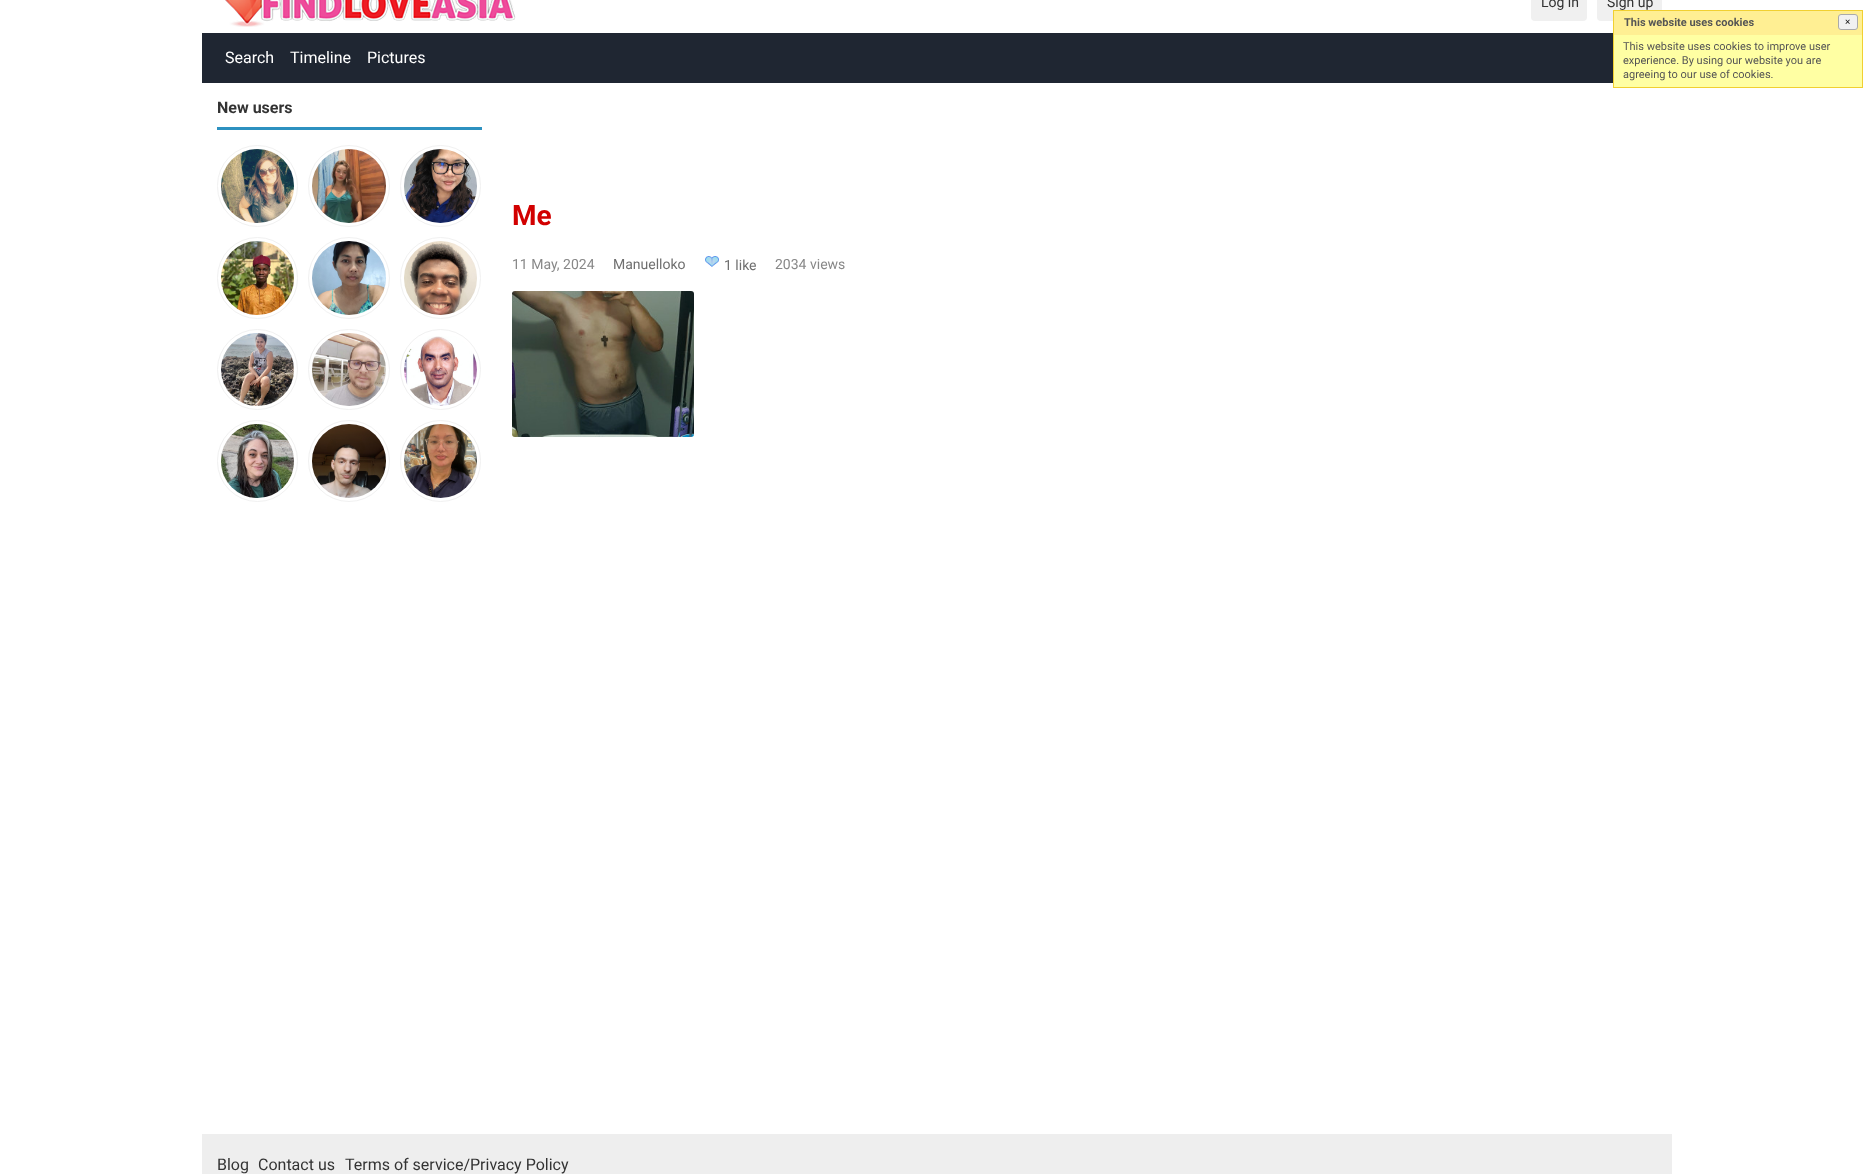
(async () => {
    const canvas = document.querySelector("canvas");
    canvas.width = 1873;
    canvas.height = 1174;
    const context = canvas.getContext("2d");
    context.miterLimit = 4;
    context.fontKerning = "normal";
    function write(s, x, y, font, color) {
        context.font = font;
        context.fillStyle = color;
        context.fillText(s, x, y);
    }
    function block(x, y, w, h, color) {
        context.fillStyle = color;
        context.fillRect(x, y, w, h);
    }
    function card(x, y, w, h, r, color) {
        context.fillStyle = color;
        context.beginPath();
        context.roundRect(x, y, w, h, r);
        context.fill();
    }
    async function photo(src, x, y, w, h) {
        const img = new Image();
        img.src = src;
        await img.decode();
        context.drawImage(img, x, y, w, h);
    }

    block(0, 0, 1873, 1174, "rgb(255, 255, 255)");
    block(202, 33, 1411, 50, "rgb(31, 38, 50)");
    card(1531, -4, 56, 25, 4, "rgb(240, 240, 240)");
    write("Log in", 1541, 7, "14px Roboto", "rgb(51, 51, 51)");
    card(1597, -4, 65, 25, 4, "rgb(240, 240, 240)");
    write("Sign up", 1607, 7, "14px Roboto", "rgb(51, 51, 51)");
    write("Search", 225, 63, "16px Roboto", "rgb(255, 255, 255)");
    write("Timeline", 290, 63, "16px Roboto", "rgb(255, 255, 255)");
    write("Pictures", 367, 63, "16px Roboto", "rgb(255, 255, 255)");
    await photo("media/1.png", 225, 0, 291, 27);
    block(1614, 35, 248, 52, "rgb(255, 255, 163)");
    context.strokeStyle = "rgb(241, 208, 49)";
    context.strokeRect(1613.5, 10.5, 249, 77);
    block(1614, 11, 248, 24, "rgb(255, 239, 147)");
    write("This website uses cookies", 1624, 26, "bold 11px Roboto", "rgb(85, 85, 85)");
    context.fillStyle = "rgb(241, 241, 241)";
    context.beginPath();
    context.roundRect(1838.5, 14.5, 19, 15, 2.5);
    context.fill();
    context.strokeStyle = "rgb(170, 170, 170)";
    context.stroke();
    write("×", 1845, 25, "10px Roboto", "rgb(17, 17, 17)");
    write("This website uses cookies to improve user", 1623, 50, "11px Roboto", "rgb(85, 85, 85)");
    write("experience. By using our website you are", 1623, 64, "11px Roboto", "rgb(85, 85, 85)");
    write("agreeing to our use of cookies.", 1623, 78, "11px Roboto", "rgb(85, 85, 85)");
    block(217, 127, 265, 3, "rgb(45, 145, 192)");
    write("New users", 217, 113, "bold 16px Roboto", "rgb(51, 51, 51)");
    context.beginPath();
    context.roundRect(217.5, 145.5, 80, 81, 40);
    context.strokeStyle = "rgb(241, 241, 241)";
    context.stroke();
    await photo("media/2.png", 221, 149, 73, 74);
    context.beginPath();
    context.arc(349, 186, 40.5, 0, Math.PI * 2);
    context.stroke();
    await photo("media/3.png", 312, 149, 74, 74);
    context.beginPath();
    context.roundRect(400.5, 145.5, 80, 81, 40);
    context.stroke();
    await photo("media/4.png", 404, 149, 73, 74);
    context.beginPath();
    context.roundRect(217.5, 237.5, 80, 81, 40);
    context.stroke();
    await photo("media/5.png", 221, 241, 73, 74);
    context.beginPath();
    context.arc(349, 278, 40.5, 0, Math.PI * 2);
    context.stroke();
    await photo("media/6.png", 312, 241, 74, 74);
    context.beginPath();
    context.roundRect(400.5, 237.5, 80, 81, 40);
    context.stroke();
    await photo("media/7.png", 404, 241, 73, 74);
    context.beginPath();
    context.arc(257.5, 369.5, 40, 0, Math.PI * 2);
    context.stroke();
    await photo("media/8.png", 221, 333, 73, 73);
    context.beginPath();
    context.roundRect(308.5, 329.5, 81, 80, 40);
    context.stroke();
    await photo("media/9.png", 312, 333, 74, 73);
    context.beginPath();
    context.arc(440.5, 369.5, 40, 0, Math.PI * 2);
    context.stroke();
    await photo("media/10.png", 404, 336, 73, 70);
    context.beginPath();
    context.roundRect(217.5, 420.5, 80, 81, 40);
    context.stroke();
    await photo("media/11.png", 221, 424, 73, 74);
    context.beginPath();
    context.arc(349, 461, 40.5, 0, Math.PI * 2);
    context.stroke();
    await photo("media/12.png", 312, 424, 74, 74);
    context.beginPath();
    context.roundRect(400.5, 420.5, 80, 81, 40);
    context.stroke();
    await photo("media/13.png", 404, 424, 73, 74);
    write("Me", 512, 225, "bold 28px Roboto", "rgb(210, 0, 0)");
    write("11 May, 2024", 512, 269, "14px Roboto", "rgb(136, 136, 136)");
    write("Manuelloko", 613, 269, "14px Roboto", "rgb(111, 111, 111)");
    await photo("media/14.png", 705, 256, 14, 11);
    write("1 like", 724, 270, "14px Roboto", "rgb(111, 111, 111)");
    write("2034 views", 775, 269, "14px Roboto", "rgb(136, 136, 136)");
    await photo("media/15.png", 512, 291, 182, 146);
    block(202, 1134, 1470, 40, "rgb(238, 238, 238)");
    write("Blog", 217, 1170, "16px Roboto", "rgb(51, 51, 51)");
    write("Contact us", 258, 1170, "16px Roboto", "rgb(51, 51, 51)");
    write("Terms of service/Privacy Policy", 345, 1170, "16px Roboto", "rgb(51, 51, 51)");
})();
